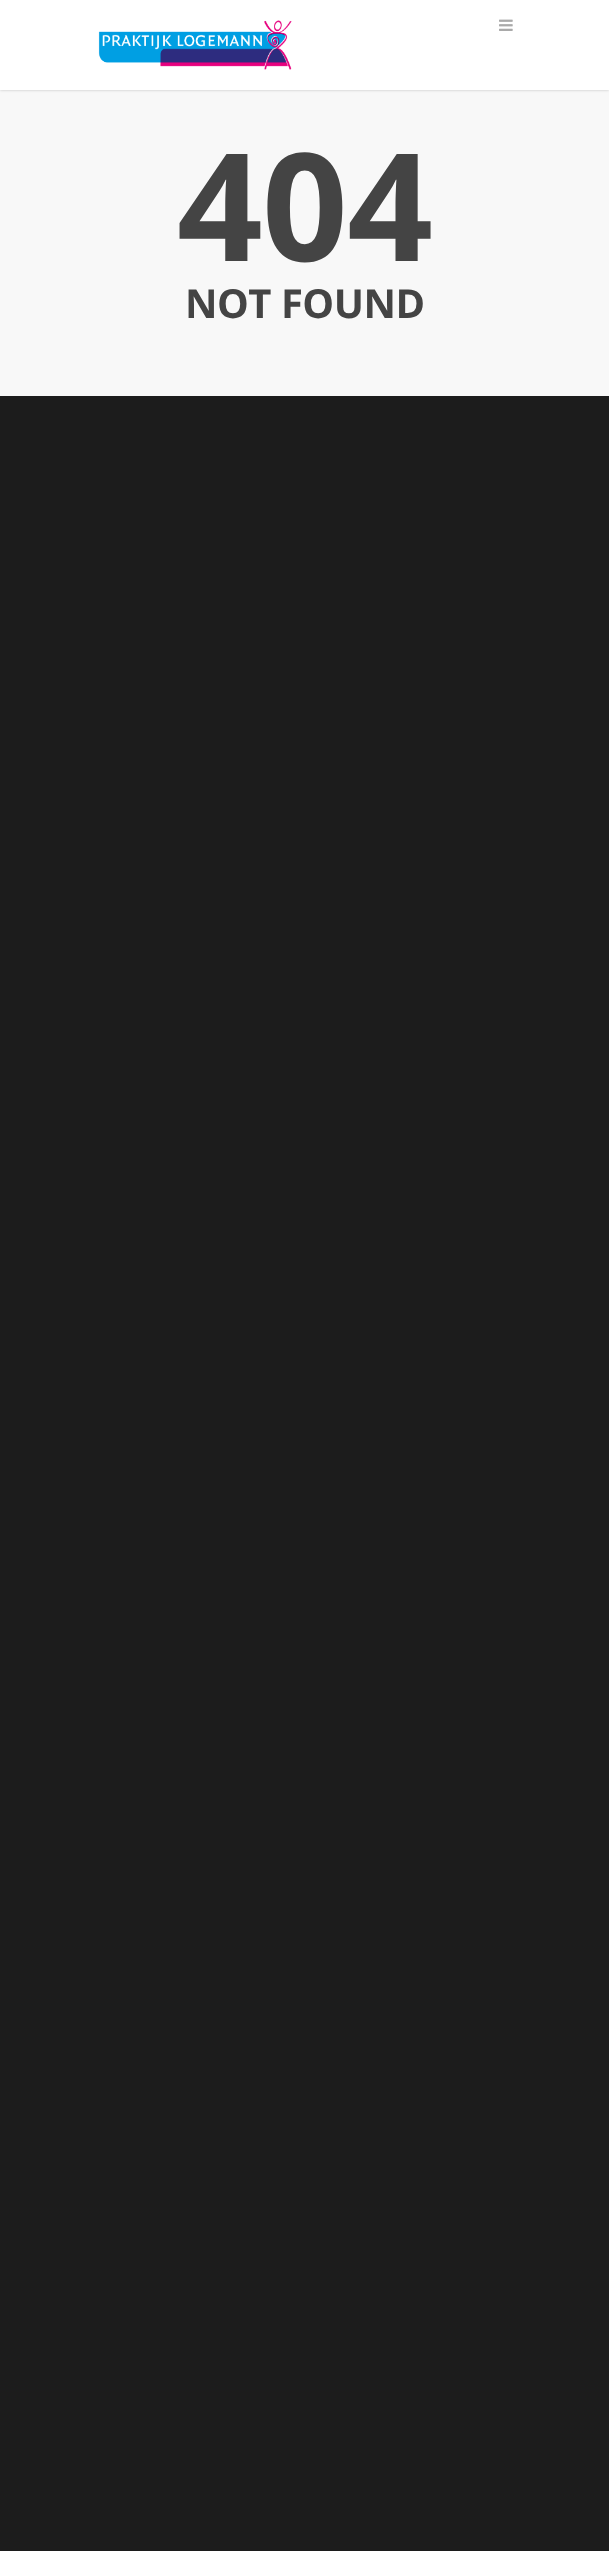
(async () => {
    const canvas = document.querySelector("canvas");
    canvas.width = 609;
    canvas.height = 2551;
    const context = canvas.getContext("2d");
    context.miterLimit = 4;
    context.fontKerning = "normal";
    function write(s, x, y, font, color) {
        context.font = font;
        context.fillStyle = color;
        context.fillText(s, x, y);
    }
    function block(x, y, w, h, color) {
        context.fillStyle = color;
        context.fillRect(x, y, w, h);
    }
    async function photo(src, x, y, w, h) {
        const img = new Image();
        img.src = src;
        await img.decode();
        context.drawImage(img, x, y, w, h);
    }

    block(0, 0, 609, 2551, "rgb(28, 28, 28)");
    block(0, 90, 609, 306, "rgb(248, 248, 248)");
    context.fillStyle = "rgba(0, 0, 0, 0.22)";
    context.filter = "blur(1.5px)";
    context.beginPath();
    context.rect(0, 0, 609, 90);
    context.fill();
    context.filter = "none";
    block(0, 0, 609, 90, "rgb(255, 255, 255)");
    await photo("media/1.png", 98, 20, 194, 50);
    await photo("media/2.png", 499, 19, 14, 12);
    context.letterSpacing = "-0.5px";
    write("404", 177, 261, "bold 150px Open Sans", "rgb(68, 68, 68)");
    write("NOT FOUND", 185, 318, "bold 40px Open Sans", "rgb(68, 68, 68)");
})();
